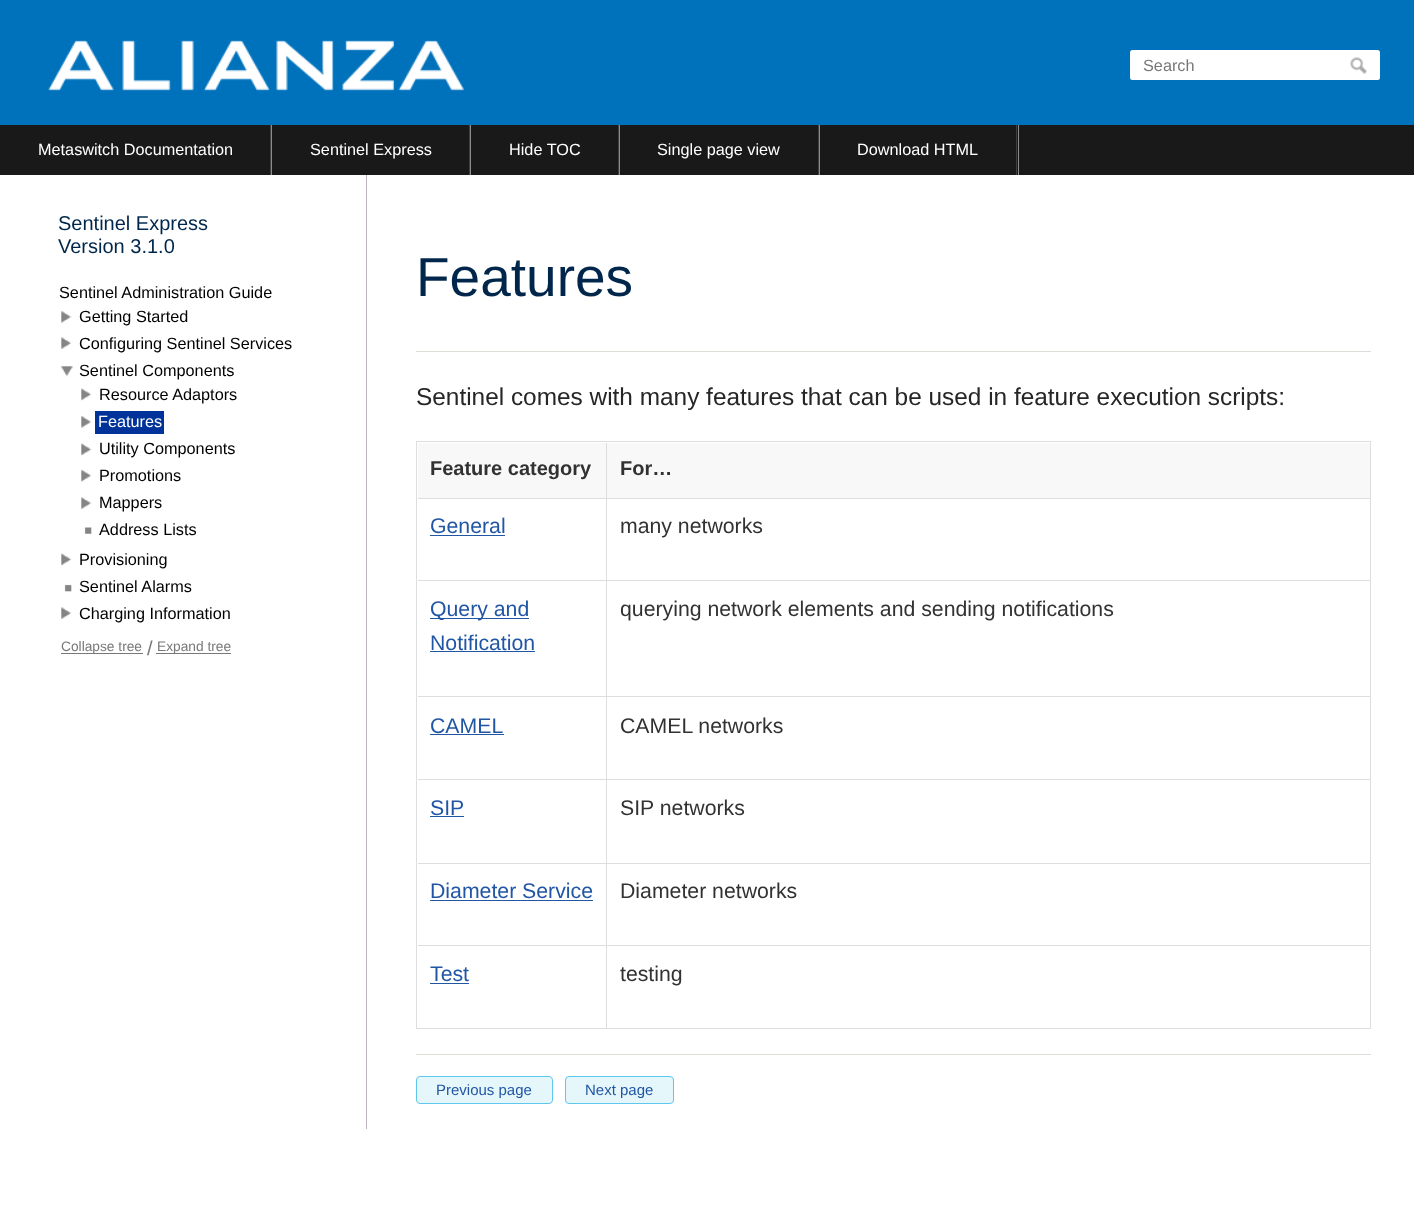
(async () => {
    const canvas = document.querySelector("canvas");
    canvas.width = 1414;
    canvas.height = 1227;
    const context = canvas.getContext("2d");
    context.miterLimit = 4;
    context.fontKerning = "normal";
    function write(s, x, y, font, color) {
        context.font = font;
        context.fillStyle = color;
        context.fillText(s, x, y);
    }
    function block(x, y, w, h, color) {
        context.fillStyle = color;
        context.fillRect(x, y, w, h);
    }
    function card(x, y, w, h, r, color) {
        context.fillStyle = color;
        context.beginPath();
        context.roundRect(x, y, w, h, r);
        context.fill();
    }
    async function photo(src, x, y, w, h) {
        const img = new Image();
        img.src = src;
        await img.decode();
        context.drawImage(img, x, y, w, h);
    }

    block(0, 0, 1414, 1227, "rgb(255, 255, 255)");
    block(0, 0, 1414, 125, "rgb(0, 114, 188)");
    await photo("media/1.png", 48, 40, 416, 51);
    block(0, 125, 1414, 50, "rgb(25, 25, 25)");
    card(1130, 50, 250, 30, 2.5, "rgb(255, 255, 255)");
    await photo("media/2.png", 1350, 57, 17, 17);
    write("Search", 1143, 71, "16.25px Liberation Sans", "rgb(120, 120, 120)");
    block(1018, 125, 1, 50, "rgb(140, 140, 140)");
    block(270, 125, 1, 50, "rgb(64, 64, 64)");
    write("Metaswitch Documentation", 38, 155, "16.25px Liberation Sans", "rgb(255, 255, 255)");
    block(469, 125, 1, 50, "rgb(64, 64, 64)");
    block(271, 125, 1, 50, "rgb(140, 140, 140)");
    write("Sentinel Express", 310, 155, "16.25px Liberation Sans", "rgb(255, 255, 255)");
    block(618, 125, 1, 50, "rgb(64, 64, 64)");
    block(470, 125, 1, 50, "rgb(140, 140, 140)");
    write("Hide TOC", 509, 155, "16.25px Liberation Sans", "rgb(255, 255, 255)");
    block(818, 125, 1, 50, "rgb(64, 64, 64)");
    block(619, 125, 1, 50, "rgb(140, 140, 140)");
    write("Single page view", 657, 155, "16.25px Liberation Sans", "rgb(255, 255, 255)");
    block(1016, 125, 1, 50, "rgb(64, 64, 64)");
    block(819, 125, 1, 50, "rgb(140, 140, 140)");
    write("Download HTML", 857, 155, "16.25px Liberation Sans", "rgb(255, 255, 255)");
    write("Sentinel Express", 58, 230, "20px Liberation Sans", "rgb(0, 39, 75)");
    write("Version 3.1.0", 58, 253, "20px Liberation Sans", "rgb(0, 39, 75)");
    write("Sentinel Administration Guide", 59, 298, "16.25px Liberation Sans", "rgb(0, 0, 0)");
    await photo("media/3.png", 61, 311, 11, 12);
    write("Getting Started", 79, 322, "16.25px Liberation Sans", "rgb(0, 0, 0)");
    await photo("media/4.png", 61, 337, 11, 12);
    write("Configuring Sentinel Services", 79, 349, "16.25px Liberation Sans", "rgb(0, 0, 0)");
    await photo("media/5.png", 61, 366, 12, 11);
    write("Sentinel Components", 79, 376, "16.25px Liberation Sans", "rgb(0, 0, 0)");
    await photo("media/6.png", 81, 388, 11, 13);
    write("Resource Adaptors", 99, 400, "16.25px Liberation Sans", "rgb(0, 0, 0)");
    await photo("media/3.png", 81, 416, 11, 12);
    block(95, 411, 69, 23, "rgb(0, 51, 153)");
    write("Features", 98, 427, "16.25px Liberation Sans", "rgb(255, 255, 255)");
    await photo("media/6.png", 81, 443, 11, 13);
    write("Utility Components", 99, 454, "16.25px Liberation Sans", "rgb(0, 0, 0)");
    await photo("media/7.png", 81, 470, 11, 12);
    write("Promotions", 99, 481, "16.25px Liberation Sans", "rgb(0, 0, 0)");
    await photo("media/4.png", 81, 497, 11, 12);
    write("Mappers", 99, 508, "16.25px Liberation Sans", "rgb(0, 0, 0)");
    await photo("media/8.png", 84, 527, 8, 7);
    write("Address Lists", 99, 535, "16.25px Liberation Sans", "rgb(0, 0, 0)");
    await photo("media/6.png", 61, 553, 11, 13);
    write("Provisioning", 79, 565, "16.25px Liberation Sans", "rgb(0, 0, 0)");
    await photo("media/9.png", 64, 584, 8, 8);
    write("Sentinel Alarms", 79, 592, "16.25px Liberation Sans", "rgb(0, 0, 0)");
    await photo("media/4.png", 61, 607, 11, 12);
    write("Charging Information", 79, 619, "16.25px Liberation Sans", "rgb(0, 0, 0)");
    block(61, 653, 82, 1, "rgb(120, 120, 120)");
    write("Collapse tree", 61, 651, "13.75px Liberation Sans", "rgb(120, 120, 120)");
    write("/", 147, 655, "20px Liberation Sans", "rgb(120, 120, 120)");
    block(156, 653, 75, 1, "rgb(120, 120, 120)");
    write("Expand tree", 157, 651, "13.75px Liberation Sans", "rgb(120, 120, 120)");
    block(416, 351, 955, 1, "rgb(221, 221, 216)");
    write("Features", 416, 296, "55px Liberation Sans", "rgb(0, 39, 75)");
    write("Sentinel comes with many features that can be used in feature execution scripts:", 416, 405, "24.4px Liberation Sans", "rgb(38, 38, 38)");
    context.strokeStyle = "rgb(222, 222, 222)";
    context.strokeRect(416.5, 441.5, 954, 587);
    block(418, 443, 952, 55, "rgb(247, 248, 247)");
    block(606, 443, 1, 585, "rgb(222, 222, 222)");
    block(418, 498, 952, 1, "rgb(222, 222, 222)");
    write("Feature category", 430, 475, "bold 20px Liberation Sans", "rgb(49, 50, 49)");
    write("For…", 620, 475, "bold 20px Liberation Sans", "rgb(49, 50, 49)");
    block(418, 580, 952, 1, "rgb(222, 222, 222)");
    write("General", 430, 533, "21.25px Liberation Sans", "rgb(33, 86, 165)");
    block(430, 535, 75, 1, "rgb(33, 86, 165)");
    write("many networks", 620, 533, "21.25px Liberation Sans", "rgb(49, 50, 49)");
    block(418, 696, 952, 1, "rgb(222, 222, 222)");
    block(430, 618, 99, 1, "rgb(33, 86, 165)");
    write("Query and", 430, 616, "21.25px Liberation Sans", "rgb(33, 86, 165)");
    write("Notification", 430, 650, "21.25px Liberation Sans", "rgb(33, 86, 165)");
    block(430, 651, 105, 1, "rgb(33, 86, 165)");
    write("querying network elements and sending notifications", 620, 616, "21.25px Liberation Sans", "rgb(49, 50, 49)");
    block(418, 779, 952, 1, "rgb(222, 222, 222)");
    write("CAMEL", 430, 733, "21.25px Liberation Sans", "rgb(33, 86, 165)");
    block(430, 734, 74, 1, "rgb(33, 86, 165)");
    write("CAMEL networks", 620, 733, "21.25px Liberation Sans", "rgb(49, 50, 49)");
    block(418, 863, 952, 1, "rgb(222, 222, 222)");
    write("SIP", 430, 815, "21.25px Liberation Sans", "rgb(33, 86, 165)");
    block(430, 816, 34, 1, "rgb(33, 86, 165)");
    write("SIP networks", 620, 815, "21.25px Liberation Sans", "rgb(49, 50, 49)");
    block(418, 945, 952, 1, "rgb(222, 222, 222)");
    write("Diameter Service", 430, 898, "21.25px Liberation Sans", "rgb(33, 86, 165)");
    block(430, 900, 163, 1, "rgb(33, 86, 165)");
    write("Diameter networks", 620, 898, "21.25px Liberation Sans", "rgb(49, 50, 49)");
    write("Test", 430, 981, "21.25px Liberation Sans", "rgb(33, 86, 165)");
    block(430, 983, 39, 1, "rgb(33, 86, 165)");
    write("testing", 620, 981, "21.25px Liberation Sans", "rgb(49, 50, 49)");
    block(416, 1054, 955, 1, "rgb(221, 221, 216)");
    context.fillStyle = "rgb(229, 247, 250)";
    context.beginPath();
    context.roundRect(416.5, 1076.5, 136, 27, 3.5);
    context.fill();
    context.strokeStyle = "rgb(95, 199, 238)";
    context.stroke();
    write("Previous page", 436, 1095, "15px Liberation Sans", "rgb(33, 86, 165)");
    context.fillStyle = "rgb(229, 247, 250)";
    context.beginPath();
    context.roundRect(565.5, 1076.5, 108, 27, 3.5);
    context.fill();
    context.stroke();
    write("Next page", 585, 1095, "15px Liberation Sans", "rgb(33, 86, 165)");
    block(366, 175, 1, 954, "rgb(189, 178, 191)");
})();
